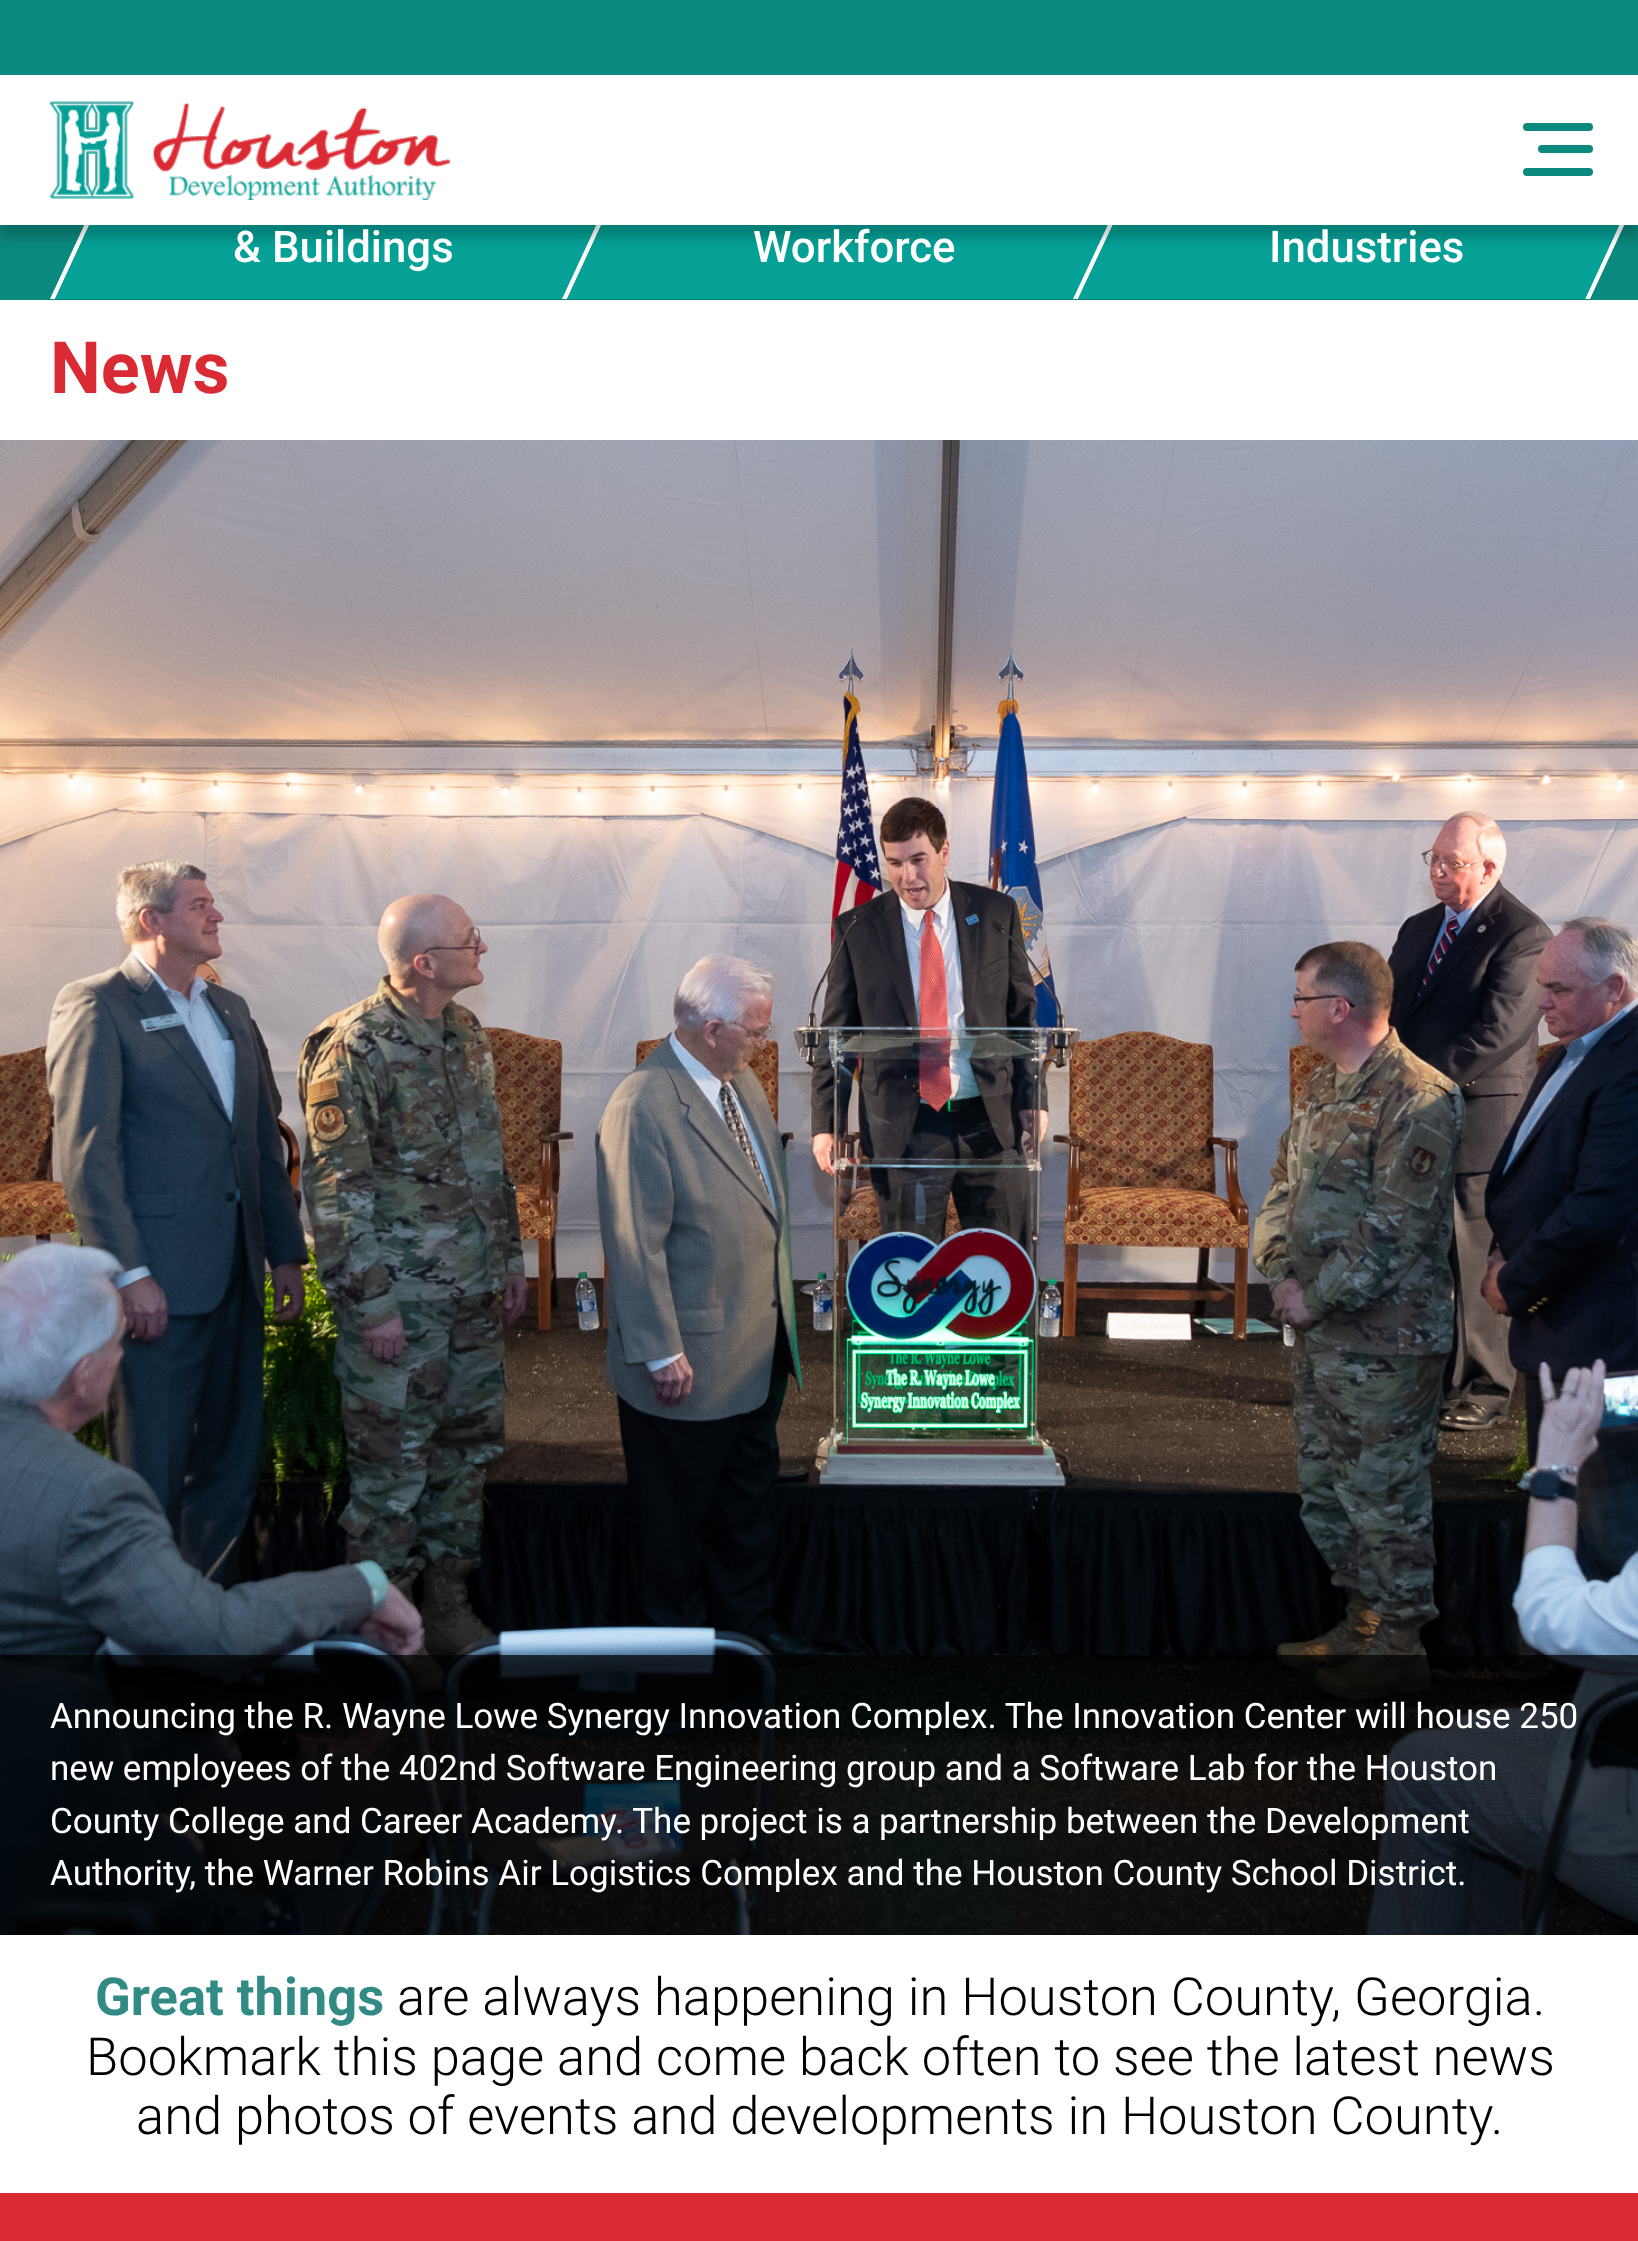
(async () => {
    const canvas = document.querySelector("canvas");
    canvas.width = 1638;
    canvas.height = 2241;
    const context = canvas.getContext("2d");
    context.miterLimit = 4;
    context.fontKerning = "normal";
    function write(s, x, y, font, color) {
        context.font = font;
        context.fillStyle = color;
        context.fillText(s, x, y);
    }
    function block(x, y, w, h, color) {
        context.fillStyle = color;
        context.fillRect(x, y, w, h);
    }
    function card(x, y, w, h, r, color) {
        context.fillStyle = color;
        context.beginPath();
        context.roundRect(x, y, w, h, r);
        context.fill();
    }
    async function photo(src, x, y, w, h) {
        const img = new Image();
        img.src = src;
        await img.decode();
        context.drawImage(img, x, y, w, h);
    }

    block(0, 0, 1638, 2241, "rgb(255, 255, 255)");
    block(0, 0, 1638, 300, "rgb(11, 137, 126)");
    context.fillStyle = "rgb(255, 255, 255)";
    context.beginPath();
    context.moveTo(119, 150);
    context.lineTo(124, 150);
    context.lineTo(55, 299);
    context.lineTo(50, 299);
    context.closePath();
    context.fill();
    context.fillStyle = "rgb(5, 160, 150)";
    context.beginPath();
    context.moveTo(124, 150);
    context.lineTo(631, 150);
    context.lineTo(562, 299);
    context.lineTo(55, 299);
    context.closePath();
    context.fill();
    context.fillStyle = "rgb(255, 255, 255)";
    context.beginPath();
    context.moveTo(631, 150);
    context.lineTo(636, 150);
    context.lineTo(567, 299);
    context.lineTo(562, 299);
    context.closePath();
    context.fill();
    context.fillStyle = "rgb(5, 160, 150)";
    context.beginPath();
    context.moveTo(636, 150);
    context.lineTo(1143, 150);
    context.lineTo(1073, 299);
    context.lineTo(567, 299);
    context.closePath();
    context.fill();
    context.fillStyle = "rgb(255, 255, 255)";
    context.beginPath();
    context.moveTo(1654, 150);
    context.lineTo(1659, 150);
    context.lineTo(1590, 299);
    context.lineTo(1585, 299);
    context.closePath();
    context.fill();
    context.beginPath();
    context.moveTo(1143, 150);
    context.lineTo(1148, 150);
    context.lineTo(1078, 299);
    context.lineTo(1073, 299);
    context.closePath();
    context.fill();
    context.fillStyle = "rgb(5, 160, 150)";
    context.beginPath();
    context.moveTo(1148, 150);
    context.lineTo(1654, 150);
    context.lineTo(1585, 299);
    context.lineTo(1078, 299);
    context.closePath();
    context.fill();
    context.fillStyle = "rgba(0, 0, 0, 0.2)";
    context.filter = "blur(6px)";
    context.beginPath();
    context.rect(0, 88, 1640, 150);
    context.fill();
    context.filter = "none";
    block(0, 75, 1638, 150, "rgb(255, 255, 255)");
    await photo("media/1.png", 50, 101, 400, 99);
    card(1523, 123, 70, 8, 4, "rgb(11, 137, 126)");
    card(1538, 145, 55, 8, 4, "rgb(11, 137, 126)");
    card(1523, 168, 70, 8, 4, "rgb(11, 137, 126)");
    write("& Buildings", 233, 262, "500 43.75px Roboto", "rgb(255, 255, 255)");
    write("Workforce", 753, 262, "500 43.75px Roboto", "rgb(255, 255, 255)");
    write("Industries", 1269, 262, "500 43.75px Roboto", "rgb(255, 255, 255)");
    write("News", 50, 393, "bold 72px Roboto", "rgb(218, 42, 51)");
    await photo("media/2.png", 0, 440, 1638, 1495);
    block(0, 1655, 1638, 280, "rgba(0, 0, 0, 0.7)");
    write("Announcing the R. Wayne Lowe Synergy Innovation Complex. The Innovation Center will house 250", 50, 1728, "35px Roboto", "rgb(255, 255, 255)");
    write("new employees of the 402nd Software Engineering group and a Software Lab for the Houston", 50, 1780, "35px Roboto", "rgb(255, 255, 255)");
    write("County College and Career Academy. The project is a partnership between the Development", 50, 1833, "35px Roboto", "rgb(255, 255, 255)");
    write("Authority, the Warner Robins Air Logistics Complex and the Houston County School District.", 50, 1885, "35px Roboto", "rgb(255, 255, 255)");
    write("Great things", 95, 2015, "bold 52.5px Roboto", "rgb(50, 138, 133)");
    write("are always happening in Houston County, Georgia.", 397, 2015, "300 52.5px Roboto", "rgb(0, 0, 0)");
    write("Bookmark this page and come back often to see the latest news", 86, 2075, "300 52.5px Roboto", "rgb(0, 0, 0)");
    write("and photos of events and developments in Houston County.", 136, 2134, "300 52.5px Roboto", "rgb(0, 0, 0)");
    block(0, 2193, 1638, 48, "rgb(218, 42, 51)");
})();
